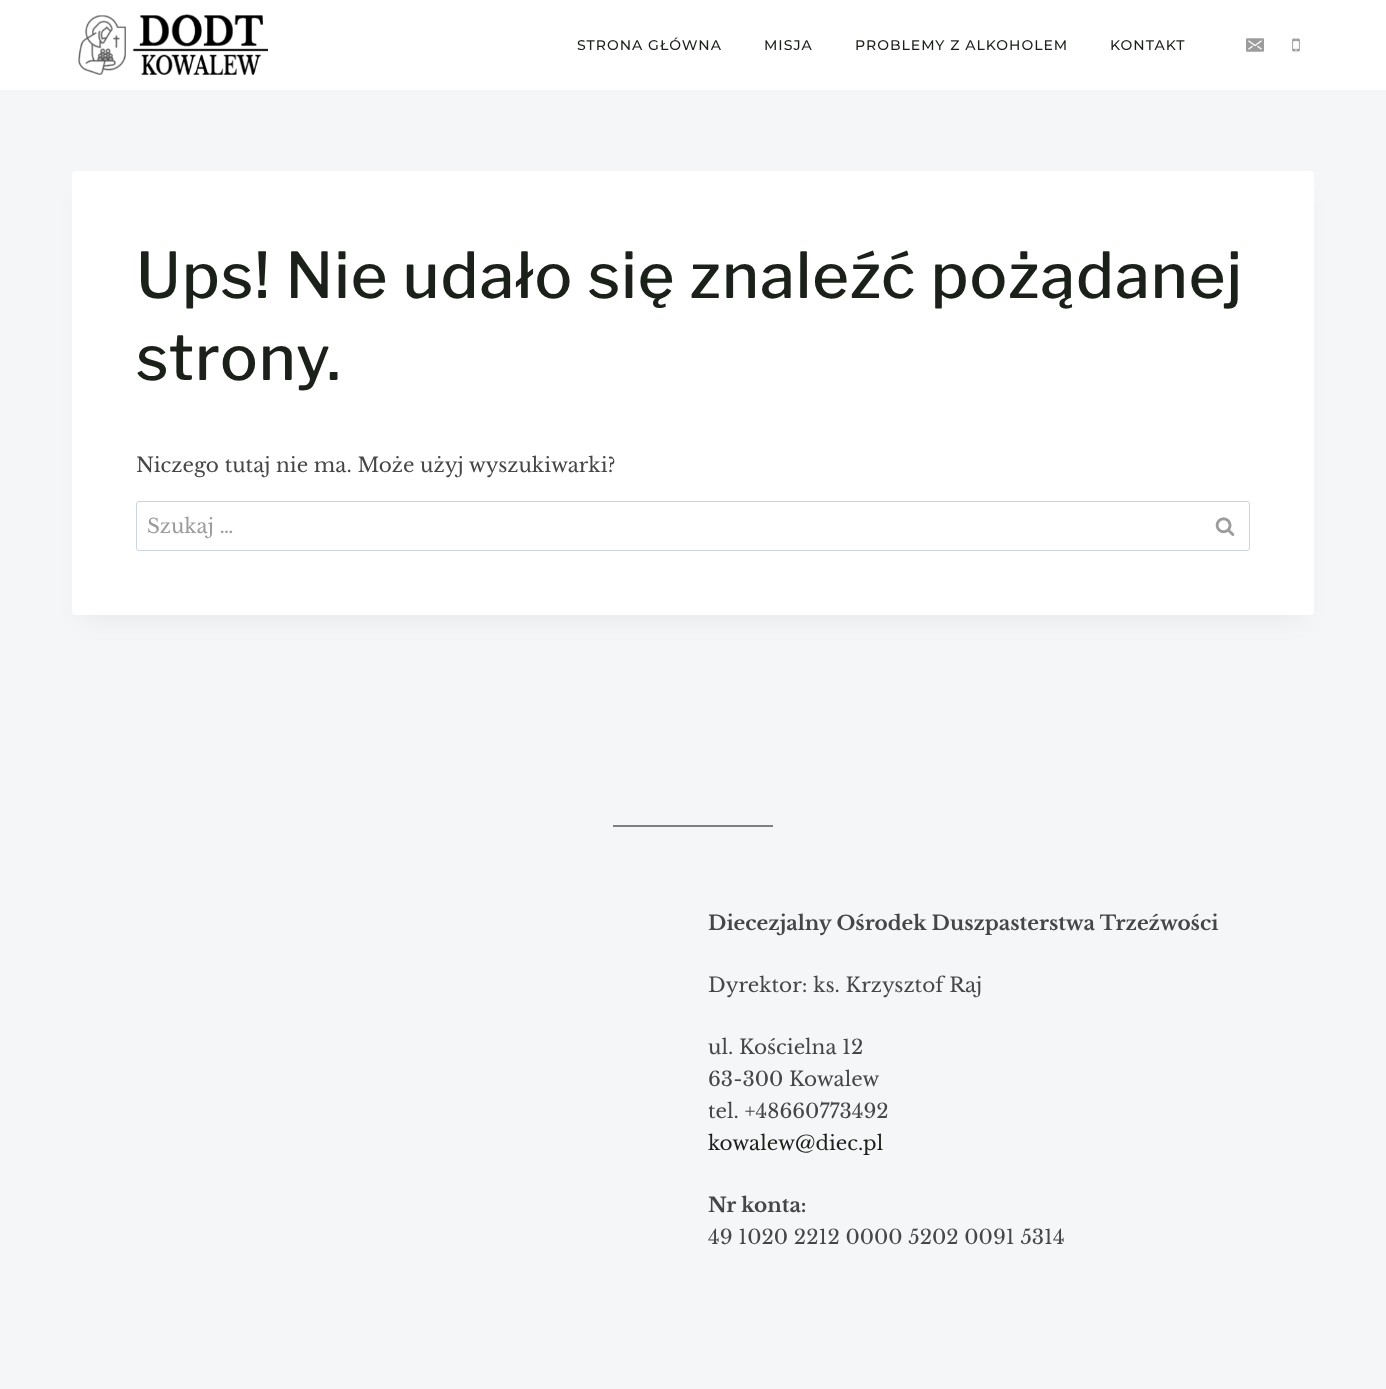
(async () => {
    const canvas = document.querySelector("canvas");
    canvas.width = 1386;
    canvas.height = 1389;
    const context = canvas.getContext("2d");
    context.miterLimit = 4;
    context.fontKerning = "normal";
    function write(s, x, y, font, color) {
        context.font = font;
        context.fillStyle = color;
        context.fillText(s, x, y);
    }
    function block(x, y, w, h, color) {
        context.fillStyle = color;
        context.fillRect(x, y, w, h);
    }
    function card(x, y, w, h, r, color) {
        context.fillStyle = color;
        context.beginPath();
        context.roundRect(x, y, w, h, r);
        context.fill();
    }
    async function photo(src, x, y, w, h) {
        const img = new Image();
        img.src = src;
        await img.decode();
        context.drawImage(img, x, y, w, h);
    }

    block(0, 0, 1386, 1389, "rgb(245, 246, 248)");
    block(0, 0, 1386, 90, "rgb(255, 255, 255)");
    await photo("media/1.png", 78, 14, 190, 61);
    context.letterSpacing = "1px";
    write("STRONA GŁÓWNA", 577, 50, "500 14px Montserrat", "rgb(27, 33, 26)");
    write("MISJA", 764, 50, "500 14px Montserrat", "rgb(27, 33, 26)");
    write("PROBLEMY Z ALKOHOLEM", 855, 50, "500 14px Montserrat", "rgb(27, 33, 26)");
    write("KONTAKT", 1110, 50, "500 14px Montserrat", "rgb(27, 33, 26)");
    await photo("media/2.png", 1246, 38, 18, 14);
    await photo("media/3.png", 1292, 38, 8, 14);
    context.fillStyle = "rgba(0, 0, 0, 0.05)";
    context.filter = "blur(12.5px)";
    context.beginPath();
    context.rect(82, 196, 1222, 424);
    context.fill();
    context.filter = "none";
    card(72, 171, 1242, 444, 4, "rgb(255, 255, 255)");
    write("Ups! Nie udało się znaleźć pożądanej", 136, 298, "500 63px Libre Franklin", "rgb(27, 33, 26)");
    write("strony.", 136, 380, "500 63px Libre Franklin", "rgb(27, 33, 26)");
    context.letterSpacing = "0px";
    write("Niczego tutaj nie ma. Może użyj wyszukiwarki?", 136, 472, "20px Libre Baskerville", "rgb(70, 70, 70)");
    context.beginPath();
    context.roundRect(136.5, 501.5, 1113, 49, 2.5);
    context.strokeStyle = "rgb(203, 213, 224)";
    context.stroke();
    write("Szukaj …", 147, 533, "20px Libre Baskerville", "rgb(156, 156, 156)");
    await photo("media/4.png", 1215, 517, 20, 19);
    block(613, 825, 160, 2, "rgb(128, 128, 128)");
    write("Diecezjalny Ośrodek Duszpasterstwa Trzeźwości", 708, 930, "bold 20px Libre Baskerville", "rgb(70, 70, 70)");
    write("Dyrektor: ks. Krzysztof Raj", 708, 992, "20px Libre Baskerville", "rgb(70, 70, 70)");
    write("ul. Kościelna 12", 708, 1054, "20px Libre Baskerville", "rgb(70, 70, 70)");
    write("63-300 Kowalew", 708, 1086, "20px Libre Baskerville", "rgb(70, 70, 70)");
    write("tel. +48660773492", 708, 1118, "20px Libre Baskerville", "rgb(70, 70, 70)");
    write("kowalew@diec.pl", 708, 1150, "20px Libre Baskerville", "rgb(27, 33, 26)");
    write("Nr konta:", 708, 1212, "bold 20px Libre Baskerville", "rgb(70, 70, 70)");
    write("49 1020 2212 0000 5202 0091 5314", 708, 1244, "20px Libre Baskerville", "rgb(70, 70, 70)");
})();
